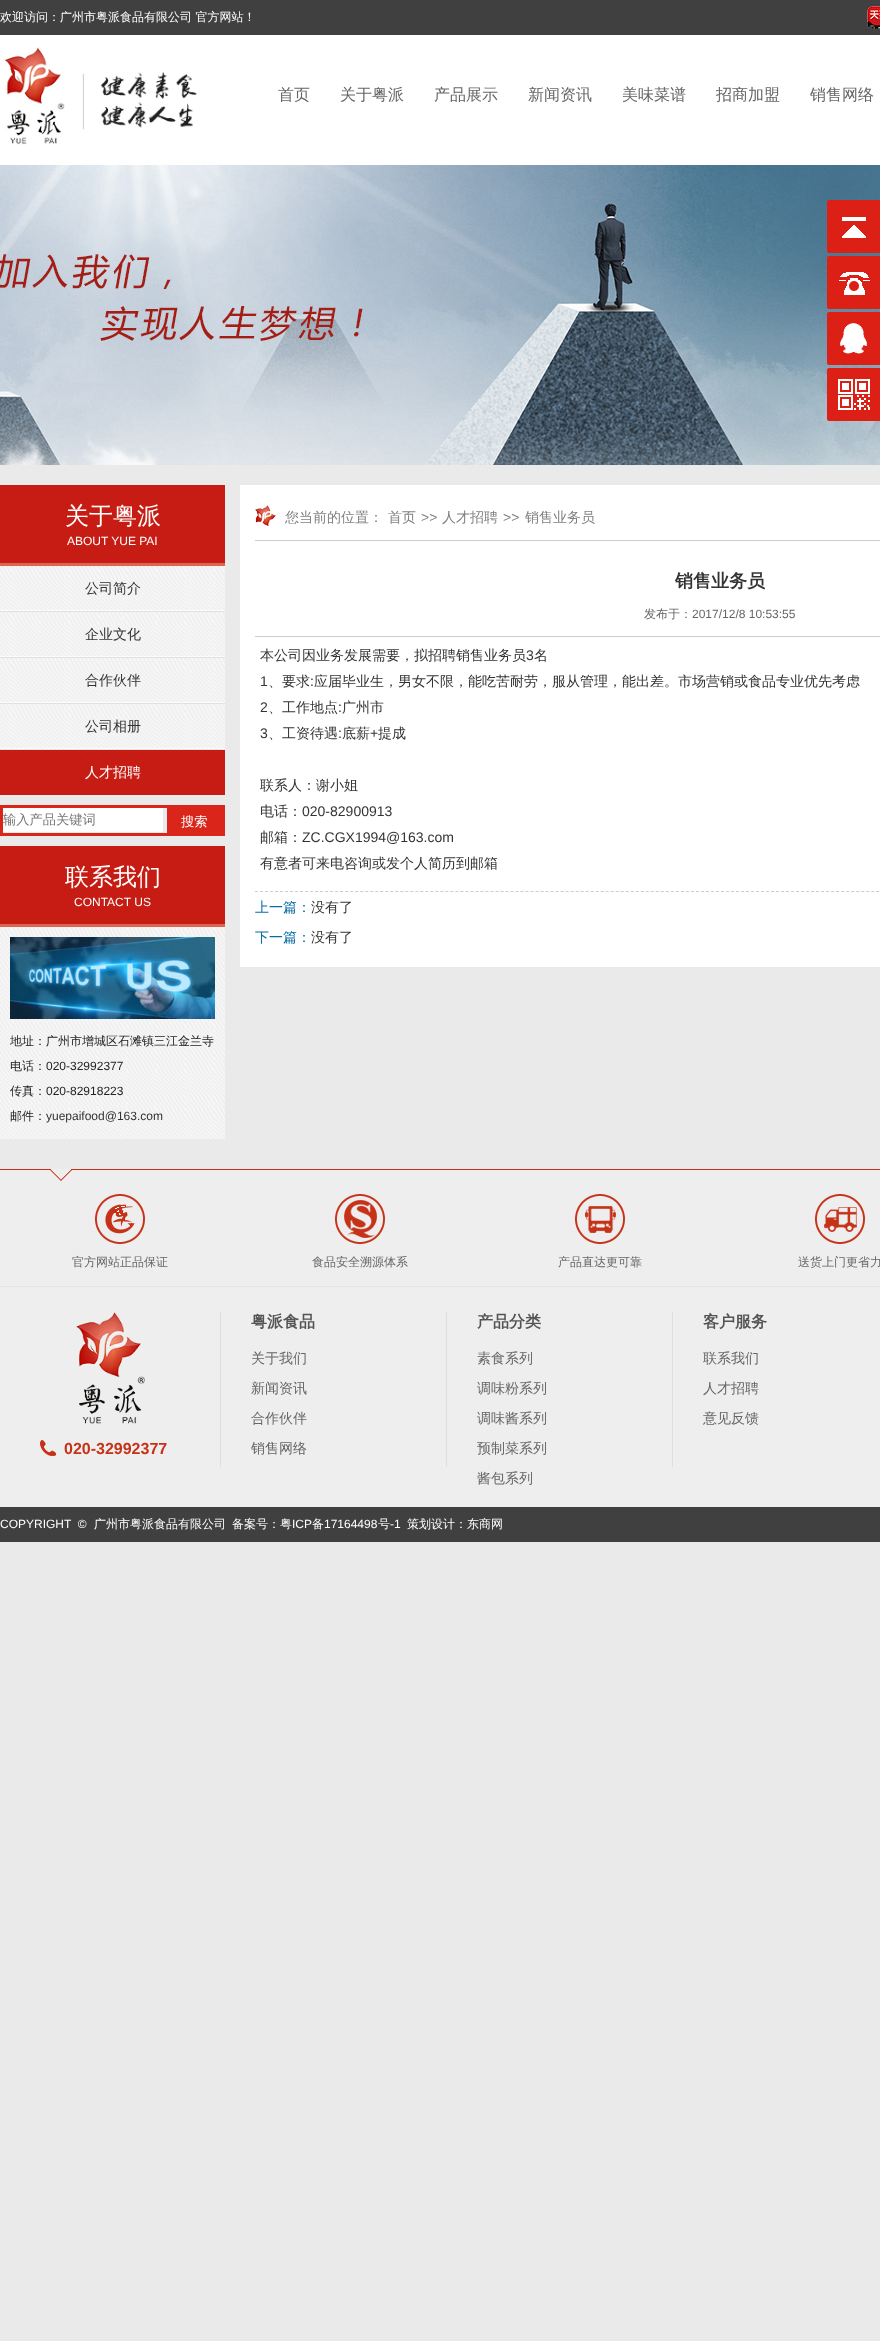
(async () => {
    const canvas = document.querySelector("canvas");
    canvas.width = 880;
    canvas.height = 2341;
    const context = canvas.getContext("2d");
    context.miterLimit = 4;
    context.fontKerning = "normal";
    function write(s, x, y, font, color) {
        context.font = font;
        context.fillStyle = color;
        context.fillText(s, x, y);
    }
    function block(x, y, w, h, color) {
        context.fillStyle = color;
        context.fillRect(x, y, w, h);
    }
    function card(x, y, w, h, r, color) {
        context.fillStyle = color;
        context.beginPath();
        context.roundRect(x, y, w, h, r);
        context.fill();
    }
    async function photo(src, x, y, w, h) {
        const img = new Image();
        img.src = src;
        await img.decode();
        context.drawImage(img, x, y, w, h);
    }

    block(0, 0, 880, 2341, "rgb(234, 234, 234)");
    block(0, 0, 880, 35, "rgb(64, 64, 64)");
    write("欢迎访问：广州市粤派食品有限公司 官方网站！", 0, 21, "500 12px WenQuanYi Zen Hei", "rgb(255, 255, 255)");
    await photo("media/1.png", 867, 6, 13, 23);
    block(0, 35, 880, 130, "rgb(255, 255, 255)");
    await photo("media/2.png", 4, 47, 193, 98);
    write("首页", 278, 100, "500 16px WenQuanYi Zen Hei", "rgb(102, 102, 102)");
    write("关于粤派", 340, 100, "500 16px WenQuanYi Zen Hei", "rgb(102, 102, 102)");
    write("产品展示", 434, 100, "500 16px WenQuanYi Zen Hei", "rgb(102, 102, 102)");
    write("新闻资讯", 528, 100, "500 16px WenQuanYi Zen Hei", "rgb(102, 102, 102)");
    write("美味菜谱", 622, 100, "500 16px WenQuanYi Zen Hei", "rgb(102, 102, 102)");
    write("招商加盟", 716, 100, "500 16px WenQuanYi Zen Hei", "rgb(102, 102, 102)");
    write("销售网络", 810, 100, "500 16px WenQuanYi Zen Hei", "rgb(102, 102, 102)");
    await photo("media/3.png", 0, 165, 880, 300);
    card(827, 200, 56, 53, 3, "rgb(221, 32, 21)");
    await photo("media/4.png", 827, 200, 39, 53);
    card(827, 256, 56, 53, 3, "rgb(221, 32, 21)");
    await photo("media/5.png", 827, 256, 43, 53);
    card(827, 312, 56, 53, 3, "rgb(221, 32, 21)");
    await photo("media/6.png", 827, 312, 40, 53);
    card(827, 368, 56, 53, 3, "rgb(221, 32, 21)");
    await photo("media/7.png", 827, 368, 43, 53);
    block(0, 485, 225, 78, "rgb(198, 28, 19)");
    block(0, 563, 225, 3, "rgb(221, 100, 82)");
    write("关于粤派", 65, 524, "500 24px WenQuanYi Zen Hei", "rgb(255, 255, 255)");
    write("ABOUT YUE PAI", 67, 545, "12px Liberation Sans", "rgb(255, 255, 255)");
    await photo("media/8.png", 0, 566, 225, 45);
    write("公司简介", 85, 593, "500 14px WenQuanYi Zen Hei", "rgb(51, 51, 51)");
    await photo("media/8.png", 0, 612, 225, 45);
    block(0, 611, 225, 1, "rgb(224, 224, 224)");
    write("企业文化", 85, 639, "500 14px WenQuanYi Zen Hei", "rgb(51, 51, 51)");
    await photo("media/8.png", 0, 658, 225, 45);
    block(0, 657, 225, 1, "rgb(224, 224, 224)");
    write("合作伙伴", 85, 685, "500 14px WenQuanYi Zen Hei", "rgb(51, 51, 51)");
    await photo("media/8.png", 0, 704, 225, 45);
    block(0, 703, 225, 1, "rgb(224, 224, 224)");
    write("公司相册", 85, 731, "500 14px WenQuanYi Zen Hei", "rgb(51, 51, 51)");
    block(0, 749, 225, 1, "rgb(224, 224, 224)");
    block(0, 750, 225, 45, "rgb(198, 28, 19)");
    write("人才招聘", 85, 777, "500 14px WenQuanYi Zen Hei", "rgb(255, 255, 255)");
    context.strokeStyle = "rgb(218, 37, 27)";
    context.lineWidth = 3;
    context.strokeRect(1.5, 806.5, 222, 28);
    block(3, 808, 160, 24, "rgb(255, 255, 255)");
    write("输入产品关键词", 3, 824, "500 13.25px WenQuanYi Zen Hei", "rgb(117, 117, 117)");
    block(167, 808, 55, 25, "rgb(218, 37, 27)");
    write("搜索", 181, 826, "500 13.25px WenQuanYi Zen Hei", "rgb(255, 255, 255)");
    await photo("media/9.png", 0, 927, 225, 212);
    block(0, 846, 225, 78, "rgb(198, 28, 19)");
    block(0, 924, 225, 3, "rgb(221, 100, 82)");
    write("联系我们", 65, 885, "500 24px WenQuanYi Zen Hei", "rgb(255, 255, 255)");
    write("CONTACT US", 74, 906, "12px Liberation Sans", "rgb(255, 255, 255)");
    await photo("media/10.png", 10, 937, 205, 82);
    write("地址：广州市增城区石滩镇三江金兰寺", 10, 1045, "500 12px WenQuanYi Zen Hei", "rgb(34, 34, 34)");
    write("电话：", 10, 1070, "500 12px WenQuanYi Zen Hei", "rgb(34, 34, 34)");
    write("020-32992377", 46, 1070, "12px Liberation Sans", "rgb(34, 34, 34)");
    write("传真：", 10, 1095, "500 12px WenQuanYi Zen Hei", "rgb(34, 34, 34)");
    write("020-82918223", 46, 1095, "12px Liberation Sans", "rgb(34, 34, 34)");
    write("邮件：", 10, 1120, "500 12px WenQuanYi Zen Hei", "rgb(34, 34, 34)");
    write("yuepaifood@163.com", 46, 1120, "12px Liberation Sans", "rgb(51, 51, 51)");
    block(240, 485, 640, 482, "rgb(255, 255, 255)");
    await photo("media/11.png", 255, 505, 21, 21);
    block(255, 540, 625, 1, "rgb(204, 204, 204)");
    write("您当前的位置：", 285, 522, "500 14px WenQuanYi Zen Hei", "rgb(128, 128, 128)");
    write("首页", 388, 522, "500 14px WenQuanYi Zen Hei", "rgb(128, 128, 128)");
    write(">>", 421, 522, "14px Liberation Sans", "rgb(128, 128, 128)");
    write("人才招聘", 442, 522, "500 14px WenQuanYi Zen Hei", "rgb(128, 128, 128)");
    write(">>", 503, 522, "14px Liberation Sans", "rgb(128, 128, 128)");
    write("销售业务员", 525, 522, "500 14px WenQuanYi Zen Hei", "rgb(128, 128, 128)");
    write("销售业务员", 675, 587, "bold 18px WenQuanYi Zen Hei", "rgb(51, 51, 51)");
    block(255, 636, 625, 1, "rgb(204, 204, 204)");
    write("发布于：", 644, 618, "500 12px WenQuanYi Zen Hei", "rgb(102, 102, 102)");
    write("2017/12/8 10:53:55", 692, 618, "12px Liberation Sans", "rgb(102, 102, 102)");
    write("本公司因业务发展需要，拟招聘销售业务员", 260, 660, "500 14px WenQuanYi Zen Hei", "rgb(51, 51, 51)");
    write("3", 526, 660, "14px Liberation Sans", "rgb(51, 51, 51)");
    write("名", 534, 660, "500 14px WenQuanYi Zen Hei", "rgb(51, 51, 51)");
    write("1", 260, 686, "14px Liberation Sans", "rgb(51, 51, 51)");
    write("、要求", 268, 686, "500 14px WenQuanYi Zen Hei", "rgb(51, 51, 51)");
    write(":", 310, 686, "14px Liberation Sans", "rgb(51, 51, 51)");
    write("应届毕业生，男女不限，能吃苦耐劳，服从管理，能出差。市场营销或食品专业优先考虑", 314, 686, "500 14px WenQuanYi Zen Hei", "rgb(51, 51, 51)");
    write("2", 260, 712, "14px Liberation Sans", "rgb(51, 51, 51)");
    write("、工作地点", 268, 712, "500 14px WenQuanYi Zen Hei", "rgb(51, 51, 51)");
    write(":", 338, 712, "14px Liberation Sans", "rgb(51, 51, 51)");
    write("广州市", 342, 712, "500 14px WenQuanYi Zen Hei", "rgb(51, 51, 51)");
    write("3", 260, 738, "14px Liberation Sans", "rgb(51, 51, 51)");
    write("、工资待遇", 268, 738, "500 14px WenQuanYi Zen Hei", "rgb(51, 51, 51)");
    write(":", 338, 738, "14px Liberation Sans", "rgb(51, 51, 51)");
    write("底薪", 342, 738, "500 14px WenQuanYi Zen Hei", "rgb(51, 51, 51)");
    write("+", 370, 738, "14px Liberation Sans", "rgb(51, 51, 51)");
    write("提成", 378, 738, "500 14px WenQuanYi Zen Hei", "rgb(51, 51, 51)");
    write("联系人：谢小姐", 260, 790, "500 14px WenQuanYi Zen Hei", "rgb(51, 51, 51)");
    write("电话：", 260, 816, "500 14px WenQuanYi Zen Hei", "rgb(51, 51, 51)");
    write("020-82900913", 302, 816, "14px Liberation Sans", "rgb(51, 51, 51)");
    write("邮箱：", 260, 842, "500 14px WenQuanYi Zen Hei", "rgb(51, 51, 51)");
    write("ZC.CGX1994@163.com", 302, 842, "14px Liberation Sans", "rgb(51, 51, 51)");
    write("有意者可来电咨询或发个人简历到邮箱", 260, 868, "500 14px WenQuanYi Zen Hei", "rgb(51, 51, 51)");
    context.beginPath();
    context.moveTo(255, 891.5);
    context.lineTo(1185, 891.5);
    context.strokeStyle = "rgb(204, 204, 204)";
    context.lineWidth = 1;
    context.setLineDash([3, 2.01]);
    context.stroke();
    write("上一篇：", 255, 912, "500 14px WenQuanYi Zen Hei", "rgb(8, 108, 163)");
    write("没有了", 311, 912, "500 14px WenQuanYi Zen Hei", "rgb(51, 51, 51)");
    write("下一篇：", 255, 942, "500 14px WenQuanYi Zen Hei", "rgb(8, 108, 163)");
    write("没有了", 311, 942, "500 14px WenQuanYi Zen Hei", "rgb(51, 51, 51)");
    block(0, 1169, 880, 338, "rgb(238, 238, 238)");
    await photo("media/12.png", 0, 1169, 880, 12);
    await photo("media/13.png", 95, 1194, 50, 50);
    write("官方网站正品保证", 72, 1266, "500 12px WenQuanYi Zen Hei", "rgb(102, 102, 102)");
    await photo("media/14.png", 335, 1194, 50, 50);
    write("食品安全溯源体系", 312, 1266, "500 12px WenQuanYi Zen Hei", "rgb(102, 102, 102)");
    await photo("media/15.png", 575, 1194, 50, 50);
    write("产品直达更可靠", 558, 1266, "500 12px WenQuanYi Zen Hei", "rgb(102, 102, 102)");
    await photo("media/16.png", 815, 1194, 50, 50);
    write("送货上门更省力", 798, 1266, "500 12px WenQuanYi Zen Hei", "rgb(102, 102, 102)");
    block(0, 1286, 880, 1, "rgb(229, 229, 229)");
    block(220, 1312, 1, 155, "rgb(222, 222, 222)");
    write("粤派食品", 251, 1327, "bold 16px WenQuanYi Zen Hei", "rgb(84, 84, 84)");
    write("关于我们", 251, 1363, "500 14px WenQuanYi Zen Hei", "rgb(102, 102, 102)");
    write("新闻资讯", 251, 1393, "500 14px WenQuanYi Zen Hei", "rgb(102, 102, 102)");
    write("合作伙伴", 251, 1423, "500 14px WenQuanYi Zen Hei", "rgb(102, 102, 102)");
    write("销售网络", 251, 1453, "500 14px WenQuanYi Zen Hei", "rgb(102, 102, 102)");
    block(446, 1312, 1, 155, "rgb(222, 222, 222)");
    write("产品分类", 477, 1327, "bold 16px WenQuanYi Zen Hei", "rgb(84, 84, 84)");
    write("素食系列", 477, 1363, "500 14px WenQuanYi Zen Hei", "rgb(102, 102, 102)");
    write("调味粉系列", 477, 1393, "500 14px WenQuanYi Zen Hei", "rgb(102, 102, 102)");
    write("调味酱系列", 477, 1423, "500 14px WenQuanYi Zen Hei", "rgb(102, 102, 102)");
    write("预制菜系列", 477, 1453, "500 14px WenQuanYi Zen Hei", "rgb(102, 102, 102)");
    write("酱包系列", 477, 1483, "500 14px WenQuanYi Zen Hei", "rgb(102, 102, 102)");
    block(672, 1312, 1, 155, "rgb(222, 222, 222)");
    write("客户服务", 703, 1327, "bold 16px WenQuanYi Zen Hei", "rgb(84, 84, 84)");
    write("联系我们", 703, 1363, "500 14px WenQuanYi Zen Hei", "rgb(102, 102, 102)");
    write("人才招聘", 703, 1393, "500 14px WenQuanYi Zen Hei", "rgb(102, 102, 102)");
    write("意见反馈", 703, 1423, "500 14px WenQuanYi Zen Hei", "rgb(102, 102, 102)");
    await photo("media/17.png", 76, 1312, 69, 112);
    await photo("media/18.png", 40, 1440, 16, 16);
    write("020-32992377", 64, 1454, "bold 16px Liberation Sans", "rgb(198, 50, 24)");
    block(0, 1507, 880, 35, "rgb(64, 64, 64)");
    write("COPYRIGHT  ©", 0, 1528, "12px Liberation Sans", "rgb(255, 255, 255)");
    write("广州市粤派食品有限公司", 94, 1528, "500 12px WenQuanYi Zen Hei", "rgb(255, 255, 255)");
    write("备案号：粤", 232, 1528, "500 12px WenQuanYi Zen Hei", "rgb(255, 255, 255)");
    write("ICP", 292, 1528, "12px Liberation Sans", "rgb(255, 255, 255)");
    write("备", 312, 1528, "500 12px WenQuanYi Zen Hei", "rgb(255, 255, 255)");
    write("17164498", 324, 1528, "12px Liberation Sans", "rgb(255, 255, 255)");
    write("号", 378, 1528, "500 12px WenQuanYi Zen Hei", "rgb(255, 255, 255)");
    write("-1", 390, 1528, "12px Liberation Sans", "rgb(255, 255, 255)");
    write("策划设计：东商网", 407, 1528, "500 12px WenQuanYi Zen Hei", "rgb(255, 255, 255)");
})();
